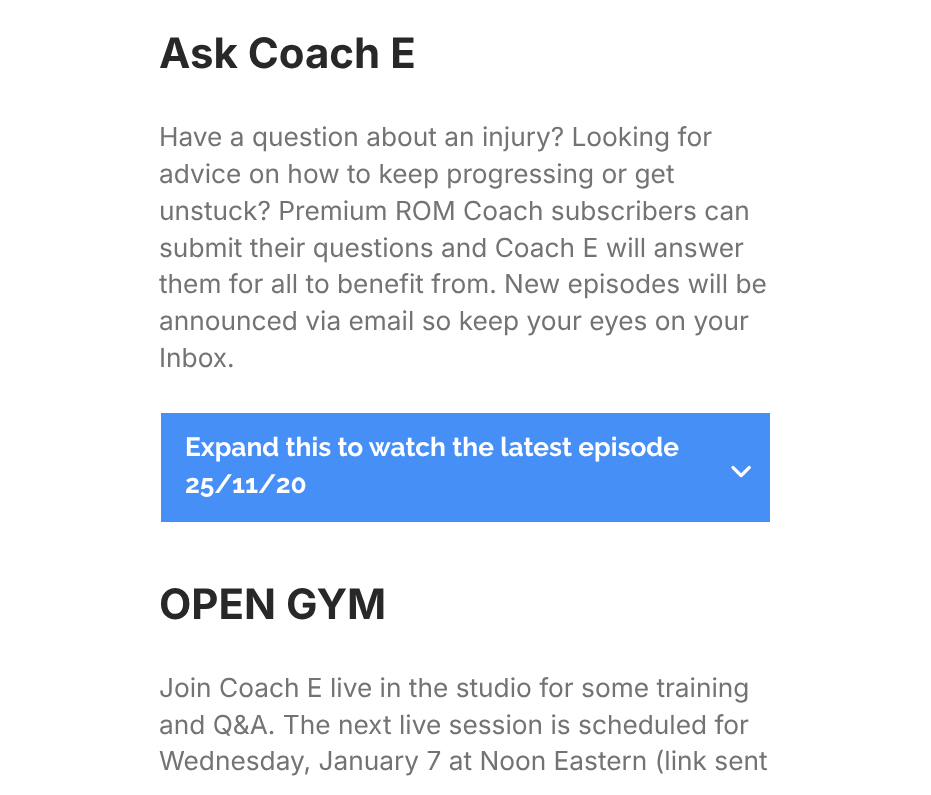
(async () => {
    const canvas = document.querySelector("canvas");
    canvas.width = 931;
    canvas.height = 795;
    const context = canvas.getContext("2d");
    context.miterLimit = 4;
    context.fontKerning = "normal";
    function write(s, x, y, font, color) {
        context.font = font;
        context.fillStyle = color;
        context.fillText(s, x, y);
    }
    function block(x, y, w, h, color) {
        context.fillStyle = color;
        context.fillRect(x, y, w, h);
    }
    async function photo(src, x, y, w, h) {
        const img = new Image();
        img.src = src;
        await img.decode();
        context.drawImage(img, x, y, w, h);
    }

    block(0, 0, 931, 795, "rgb(255, 255, 255)");
    write("Ask Coach E", 159, 68, "bold 42px Inter", "rgb(40, 40, 40)");
    write("Have a question about an injury? Looking for", 159, 146, "26.25px Inter", "rgb(115, 115, 115)");
    write("advice on how to keep progressing or get", 159, 183, "26.25px Inter", "rgb(115, 115, 115)");
    write("unstuck? Premium ROM Coach subscribers can", 159, 220, "26.25px Inter", "rgb(115, 115, 115)");
    write("submit their questions and Coach E will answer", 159, 257, "26.25px Inter", "rgb(115, 115, 115)");
    write("them for all to benefit from. New episodes will be", 159, 293, "26.25px Inter", "rgb(115, 115, 115)");
    write("announced via email so keep your eyes on your", 159, 330, "26.25px Inter", "rgb(115, 115, 115)");
    write("Inbox.", 159, 367, "26.25px Inter", "rgb(115, 115, 115)");
    block(161, 413, 609, 109, "rgb(69, 143, 247)");
    write("Expand this to watch the latest episode", 185, 456, "bold 26.25px Raleway", "rgb(255, 255, 255)");
    write("25/11/20", 185, 493, "bold 26.25px Raleway", "rgb(255, 255, 255)");
    await photo("media/1.png", 731, 465, 20, 13);
    write("OPEN GYM", 159, 619, "bold 42px Inter", "rgb(40, 40, 40)");
    write("Join Coach E live in the studio for some training", 159, 697, "26.25px Inter", "rgb(115, 115, 115)");
    write("and Q&A. The next live session is scheduled for", 159, 734, "26.25px Inter", "rgb(115, 115, 115)");
    write("Wednesday, January 7 at Noon Eastern (link sent", 159, 770, "26.25px Inter", "rgb(115, 115, 115)");
})();
